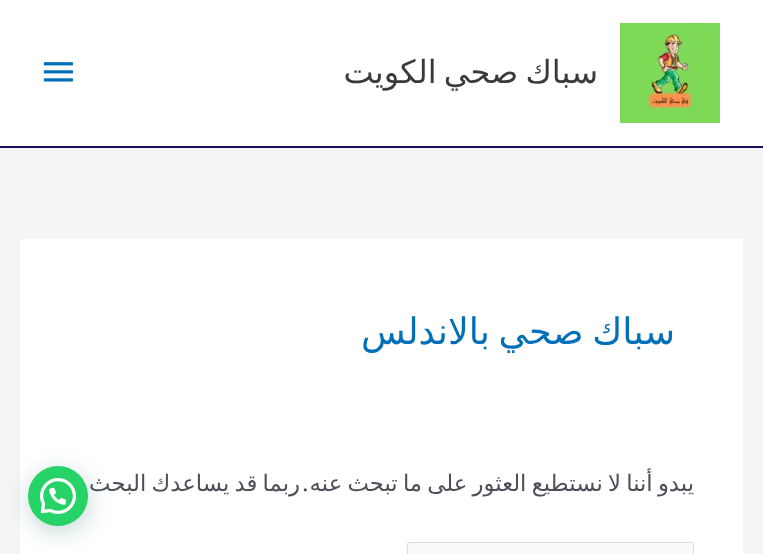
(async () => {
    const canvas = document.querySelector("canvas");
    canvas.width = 763;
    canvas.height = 554;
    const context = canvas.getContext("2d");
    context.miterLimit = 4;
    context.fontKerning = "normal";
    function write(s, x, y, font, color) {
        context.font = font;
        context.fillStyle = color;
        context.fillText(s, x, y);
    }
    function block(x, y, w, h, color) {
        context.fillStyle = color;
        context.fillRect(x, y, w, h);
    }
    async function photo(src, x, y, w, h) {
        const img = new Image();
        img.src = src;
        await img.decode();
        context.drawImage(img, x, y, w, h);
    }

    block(0, 0, 763, 554, "rgb(245, 245, 245)");
    block(0, 0, 763, 146, "rgb(255, 255, 255)");
    block(0, 146, 763, 2, "rgb(22, 14, 89)");
    await photo("media/1.png", 620, 23, 100, 100);
    context.wordSpacing = "-3px";
    context.direction = "rtl";
    write("سباك صحي الكويت", 598, 83, "32px DejaVu Sans", "rgb(58, 58, 58)");
    await photo("media/2.png", 43, 62, 30, 20);
    block(20, 239, 723, 315, "rgb(255, 255, 255)");
    write("سباك صحي بالاندلس", 675, 344, "36.5px DejaVu Sans", "rgb(1, 112, 185)");
    context.wordSpacing = "-2px";
    write("يبدو أننا لا نستطيع العثور على ما تبحث عنه", 694, 491, "22.75px DejaVu Sans", "rgb(75, 79, 88)");
    context.wordSpacing = "0px";
    write(".", 308, 491, "22.75px Vidaloka", "rgb(75, 79, 88)");
    context.wordSpacing = "-2px";
    write("ربما قد يساعدك البحث", 300, 491, "22.75px DejaVu Sans", "rgb(75, 79, 88)");
    context.fillStyle = "rgb(250, 250, 250)";
    context.beginPath();
    context.roundRect(407.5, 542.5, 286, 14, 1.5);
    context.fill();
    context.strokeStyle = "rgb(221, 221, 221)";
    context.stroke();
    context.fillStyle = "rgba(7, 94, 84, 0.24)";
    context.filter = "blur(12px)";
    context.beginPath();
    context.roundRect(29, 472, 60, 60, 30);
    context.fill();
    context.filter = "none";
    context.fillStyle = "rgb(37, 211, 102)";
    context.beginPath();
    context.arc(58, 496, 30, 0, Math.PI * 2);
    context.fill();
    await photo("media/3.png", 40, 478, 36, 36);
})();
